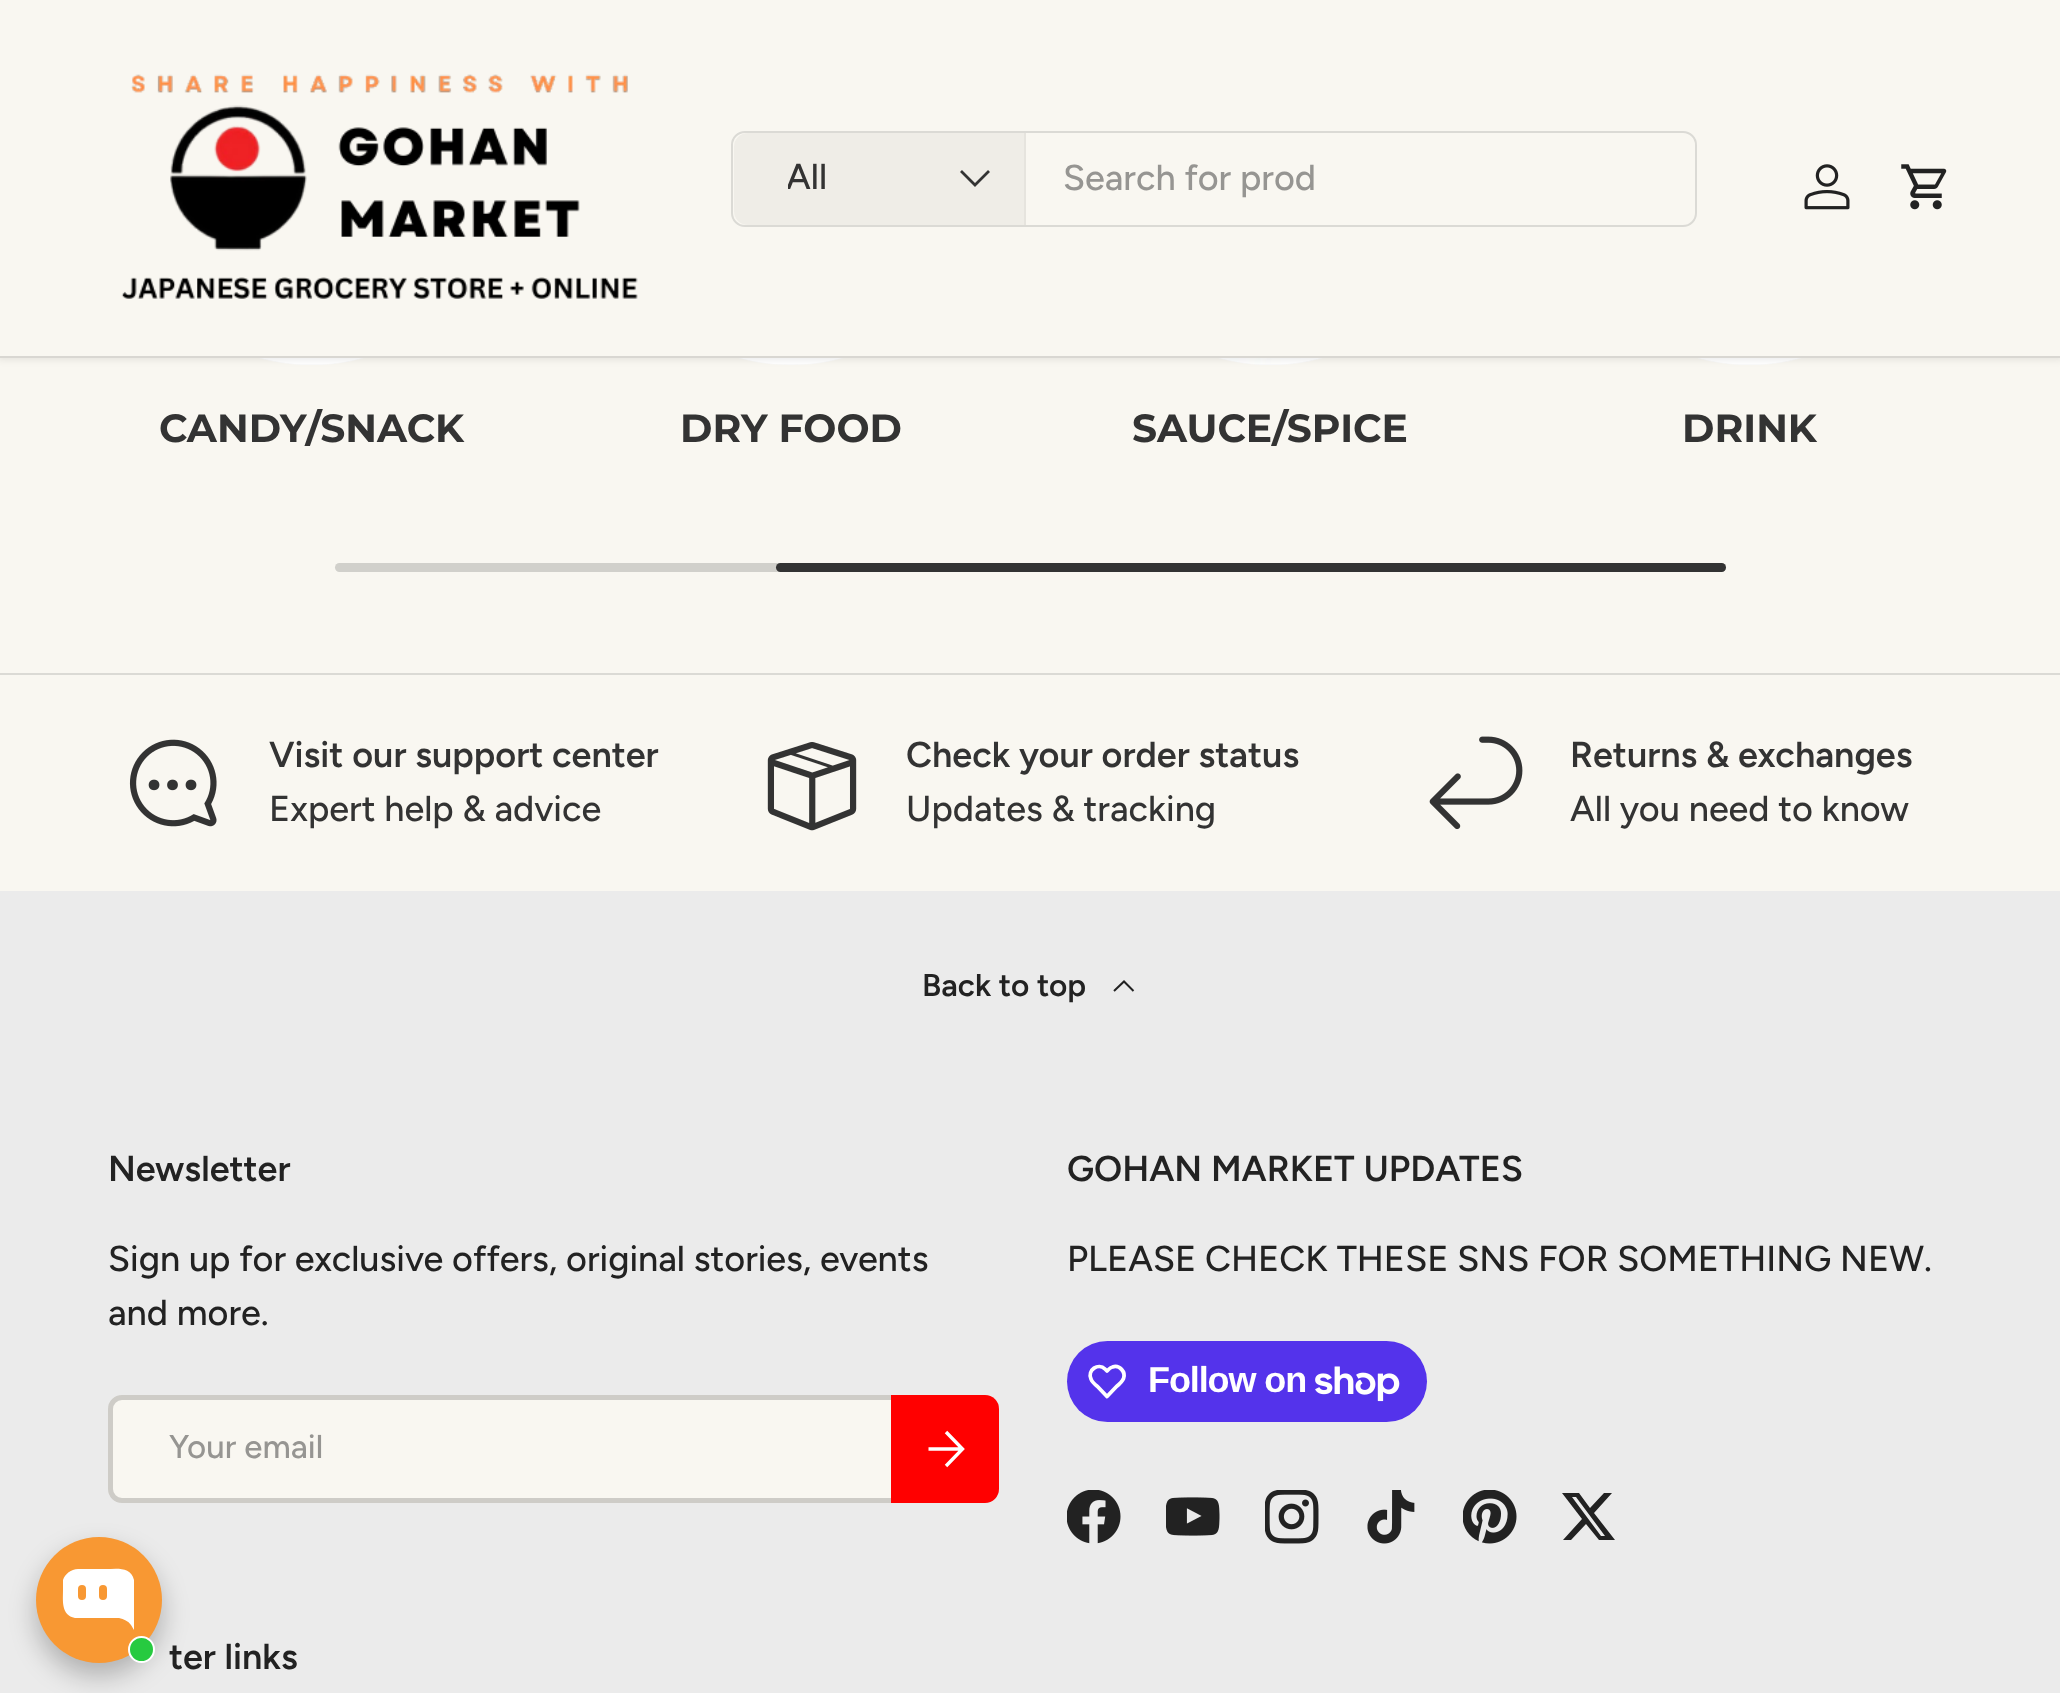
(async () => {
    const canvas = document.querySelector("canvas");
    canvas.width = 2060;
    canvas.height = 1693;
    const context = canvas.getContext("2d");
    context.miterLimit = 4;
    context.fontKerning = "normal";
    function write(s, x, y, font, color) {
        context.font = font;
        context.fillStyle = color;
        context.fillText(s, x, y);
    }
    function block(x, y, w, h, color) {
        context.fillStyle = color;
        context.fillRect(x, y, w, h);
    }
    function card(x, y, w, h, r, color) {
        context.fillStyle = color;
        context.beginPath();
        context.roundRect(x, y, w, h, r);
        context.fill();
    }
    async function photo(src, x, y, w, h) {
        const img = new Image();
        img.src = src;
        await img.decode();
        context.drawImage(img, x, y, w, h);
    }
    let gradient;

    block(0, 0, 2060, 1693, "rgb(249, 247, 241)");
    context.fillStyle = "rgb(250, 250, 250)";
    context.beginPath();
    context.arc(311.5, 163.5, 201.5, 0, Math.PI * 2);
    context.fill();
    await photo("media/4.png", 261, 358, 101, 6);
    card(590, -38, 402, 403, 201, "rgb(250, 250, 250)");
    await photo("media/5.png", 741, 358, 100, 6);
    context.beginPath();
    context.arc(1270.5, 163.5, 201.5, 0, Math.PI * 2);
    context.fill();
    await photo("media/6.png", 1220, 358, 100, 6);
    context.beginPath();
    context.arc(1749.5, 163.5, 201.5, 0, Math.PI * 2);
    context.fill();
    await photo("media/7.png", 1699, 358, 101, 6);
    context.fillStyle = "rgba(0, 0, 0, 0.08)";
    context.filter = "blur(3.5px)";
    context.beginPath();
    context.rect(-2, -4, 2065, 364);
    context.fill();
    context.filter = "none";
    block(0, 0, 2060, 356, "rgb(249, 247, 241)");
    await photo("media/1.png", 121, 74, 517, 225);
    context.beginPath();
    context.roundRect(732, 132, 964, 94, 13);
    context.strokeStyle = "rgb(219, 218, 213)";
    context.lineWidth = 2;
    context.stroke();
    context.fillStyle = "rgb(239, 237, 231)";
    context.beginPath();
    context.roundRect(734, 133, 292, 92, [14, 0, 0, 14]);
    context.fill();
    block(1024, 133, 2, 92, "rgb(230, 228, 222)");
    context.save();
    context.beginPath();
    context.rect(788, 151, 40, 54);
    context.clip();
    write("All", 786, 189, "500 36px Figtree", "rgb(51, 51, 51)");
    context.restore();
    context.beginPath();
    context.moveTo(989, 171);
    context.lineTo(975, 185);
    context.lineTo(961, 171);
    context.strokeStyle = "rgb(51, 51, 51)";
    context.lineWidth = 2.8;
    context.stroke();
    write("Search for prod", 1063, 190, "500 36px Figtree", "rgb(150, 149, 146)");
    await photo("media/2.png", 1804, 164, 46, 46);
    await photo("media/3.png", 1901, 164, 46, 46);
    block(0, 356, 2060, 2, "rgb(217, 215, 210)");
    write("CANDY/SNACK", 159, 442, "bold 39.25px Montserrat", "rgb(51, 51, 51)");
    write("DRY FOOD", 680, 442, "bold 39.25px Montserrat", "rgb(51, 51, 51)");
    write("SAUCE/SPICE", 1132, 442, "bold 39.25px Montserrat", "rgb(51, 51, 51)");
    write("DRINK", 1682, 442, "bold 39.25px Montserrat", "rgb(51, 51, 51)");
    card(335, 563, 1391, 9, 4.5, "rgb(209, 208, 203)");
    card(776, 563, 950, 9, 4.5, "rgb(51, 51, 51)");
    block(0, 673, 2060, 2, "rgb(219, 218, 213)");
    await photo("media/8.png", 129, 739, 88, 88);
    write("Visit our support center", 269, 767, "600 36px Figtree", "rgb(51, 51, 51)");
    write("Expert help & advice", 269, 821, "500 36px Figtree", "rgb(51, 51, 51)");
    await photo("media/9.png", 767, 742, 90, 89);
    write("Check your order status", 906, 767, "600 36px Figtree", "rgb(51, 51, 51)");
    write("Updates & tracking", 906, 821, "500 36px Figtree", "rgb(51, 51, 51)");
    await photo("media/10.png", 1429, 736, 94, 94);
    write("Returns & exchanges", 1570, 767, "600 36px Figtree", "rgb(51, 51, 51)");
    write("All you need to know", 1570, 821, "500 36px Figtree", "rgb(51, 51, 51)");
    block(0, 891, 2060, 802, "rgb(235, 235, 235)");
    context.fillStyle = "rgba(0, 0, 0, 0.25)";
    context.filter = "blur(13.5px)";
    context.beginPath();
    context.roundRect(36, 1550, 126, 126, 63);
    context.fill();
    context.filter = "none";
    context.fillStyle = "rgb(248, 152, 51)";
    context.beginPath();
    context.arc(99, 1600, 63, 0, Math.PI * 2);
    context.fill();
    context.fillStyle = "rgb(255, 255, 255)";
    context.beginPath();
    context.moveTo(78, 1569);
    context.bezierCurveTo(71, 1569, 65, 1574, 63, 1580);
    context.lineTo(63, 1590);
    context.bezierCurveTo(63, 1601, 61, 1615, 75, 1618);
    context.lineTo(119, 1618);
    context.bezierCurveTo(124, 1619, 128, 1621, 131, 1625);
    context.lineTo(134, 1630);
    context.lineTo(134, 1580);
    context.bezierCurveTo(131, 1566, 116, 1569, 106, 1569);
    context.closePath();
    context.fill("evenodd");
    card(78, 1585, 8, 15, 4, "rgb(248, 152, 51)");
    card(99, 1585, 8, 15, 4, "rgb(248, 152, 51)");
    context.fillStyle = "rgb(39, 202, 64)";
    context.beginPath();
    context.arc(141.5, 1649.5, 12.5, 0, Math.PI * 2);
    context.fill();
    context.strokeStyle = "rgb(255, 255, 255)";
    context.lineWidth = 2;
    context.stroke();
    write("Back to top", 922, 996, "600 31.5px Figtree", "rgb(34, 34, 34)");
    context.beginPath();
    context.moveTo(1114, 991);
    context.lineTo(1124, 981.5);
    context.lineTo(1133.5, 991);
    context.strokeStyle = "rgb(34, 34, 34)";
    context.stroke();
    write("Newsletter", 108, 1181, "600 36px Figtree", "rgb(34, 34, 34)");
    write("Sign up for exclusive offers, original stories, events", 108, 1271, "500 36px Figtree", "rgb(34, 34, 34)");
    write("and more.", 108, 1325, "500 36px Figtree", "rgb(34, 34, 34)");
    card(108, 1395, 887, 108, 14, "rgb(249, 247, 241)");
    context.beginPath();
    context.roundRect(110.5, 1397.5, 882, 103, 11.5);
    context.strokeStyle = "rgba(34, 34, 34, 0.2)";
    context.lineWidth = 5;
    context.stroke();
    write("Your email", 169, 1458, "500 33px Figtree", "rgb(150, 149, 146)");
    gradient = context.createLinearGradient(672, 1408, 1002, 1490);
    gradient.addColorStop(0.6, "rgb(255, 53, 53)");
    gradient.addColorStop(0.6, "rgb(255, 0, 0)");
    gradient.addColorStop(1, "rgb(255, 0, 0)");
    context.fillStyle = gradient;
    context.beginPath();
    context.roundRect(891, 1395, 108, 108, [0, 14, 14, 0]);
    context.fill();
    context.beginPath();
    context.moveTo(928.5, 1449);
    context.lineTo(961.5, 1449);
    context.moveTo(946, 1432);
    context.lineTo(962.5, 1449);
    context.lineTo(946, 1466);
    context.strokeStyle = "rgb(255, 255, 255)";
    context.lineWidth = 3.4;
    context.stroke();
    write("GOHAN MARKET UPDATES", 1067, 1181, "600 36px Figtree", "rgb(34, 34, 34)");
    write("PLEASE CHECK THESE SNS FOR SOMETHING NEW.", 1067, 1271, "500 36px Figtree", "rgb(34, 34, 34)");
    card(1067, 1341, 360, 81, 40.5, "rgb(84, 51, 235)");
    context.beginPath();
    context.moveTo(1105, 1369);
    context.lineTo(1107, 1371);
    context.bezierCurveTo(1108.5, 1369.5, 1110, 1367.5, 1112.5, 1367);
    context.bezierCurveTo(1119.5, 1364.5, 1126, 1372, 1123.5, 1378.5);
    context.bezierCurveTo(1122, 1382, 1119, 1384.5, 1116.5, 1386.5);
    context.lineTo(1107, 1396.5);
    context.lineTo(1097.5, 1386.5);
    context.bezierCurveTo(1095, 1384.5, 1092, 1382, 1091, 1379);
    context.bezierCurveTo(1087, 1370, 1098.5, 1362.5, 1105, 1369);
    context.closePath();
    context.lineWidth = 3.8;
    context.lineJoin = "round";
    context.stroke();
    context.letterSpacing = "-1.1px";
    write("Follow on", 1148, 1392, "bold 36px Liberation Sans", "rgb(255, 255, 255)");
    await photo("media/11.png", 1315, 1366, 85, 36);
    await photo("media/12.png", 1067, 1490, 54, 54);
    await photo("media/13.png", 1166, 1497, 54, 39);
    await photo("media/14.png", 1265, 1490, 54, 54);
    await photo("media/15.png", 1367, 1490, 48, 54);
    await photo("media/16.png", 1463, 1490, 54, 54);
    context.fillStyle = "rgb(34, 34, 34)";
    context.beginPath();
    context.moveTo(1604, 1493);
    context.lineTo(1612, 1493);
    context.lineTo(1594, 1513);
    context.lineTo(1615, 1540);
    context.lineTo(1599, 1540);
    context.lineTo(1586, 1524);
    context.lineTo(1571, 1540);
    context.lineTo(1563, 1540);
    context.lineTo(1582, 1519);
    context.lineTo(1562, 1493);
    context.lineTo(1579, 1493);
    context.lineTo(1590, 1508);
    context.closePath();
    context.moveTo(1601, 1536);
    context.lineTo(1605, 1536);
    context.lineTo(1576, 1497);
    context.lineTo(1572, 1497);
    context.closePath();
    context.fill();
    context.letterSpacing = "0px";
    write("ter links", 169, 1669, "600 36px Figtree", "rgb(34, 34, 34)");
})();
